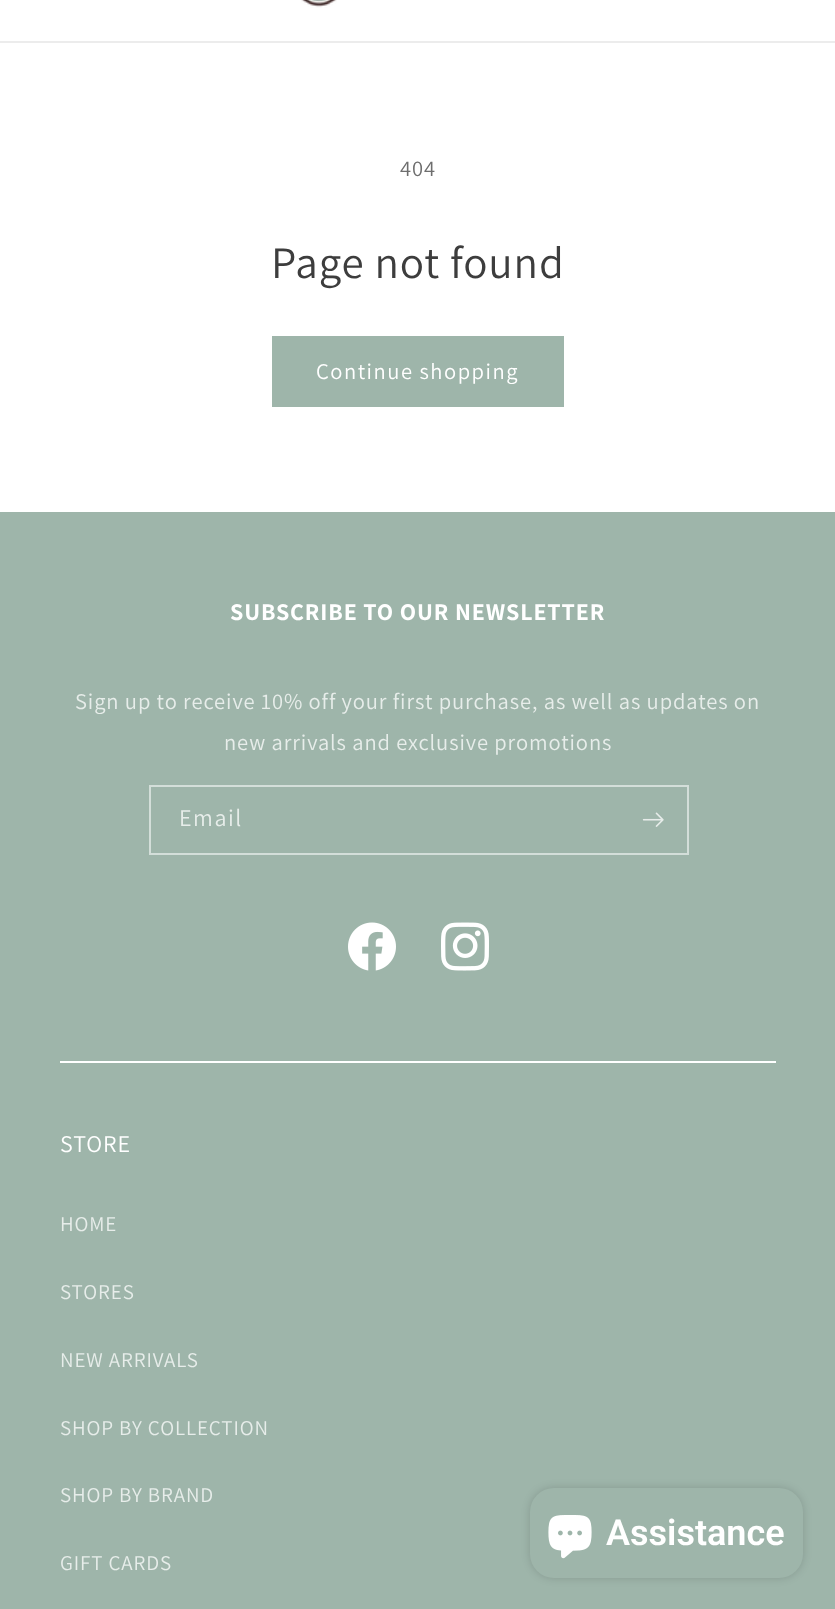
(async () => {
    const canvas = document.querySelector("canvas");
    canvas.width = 835;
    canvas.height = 1609;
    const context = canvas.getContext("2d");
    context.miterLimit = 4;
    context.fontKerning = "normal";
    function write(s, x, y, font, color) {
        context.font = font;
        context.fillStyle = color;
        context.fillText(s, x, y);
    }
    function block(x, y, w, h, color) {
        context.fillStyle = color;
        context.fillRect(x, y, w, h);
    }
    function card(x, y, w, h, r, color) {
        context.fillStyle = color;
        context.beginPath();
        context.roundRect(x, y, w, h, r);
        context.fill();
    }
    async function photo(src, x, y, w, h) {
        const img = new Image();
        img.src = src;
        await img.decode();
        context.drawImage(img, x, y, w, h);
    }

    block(0, 0, 835, 1609, "rgb(255, 255, 255)");
    block(0, 41, 835, 2, "rgb(236, 236, 236)");
    await photo("media/1.png", 301, 0, 36, 8);
    context.letterSpacing = "0.9px";
    write("404", 400, 176, "22.5px Assistant", "rgb(110, 110, 110)");
    write("Page not found", 271, 278, "45px Assistant", "rgb(61, 61, 61)");
    block(272, 336, 292, 71, "rgb(158, 181, 170)");
    context.letterSpacing = "1.5px";
    write("Continue shopping", 316, 379, "22.5px Assistant", "rgb(255, 255, 255)");
    block(0, 512, 835, 1097, "rgb(158, 181, 170)");
    block(60, 1061, 716, 2, "rgb(255, 255, 255)");
    context.letterSpacing = "0.9px";
    write("SUBSCRIBE TO OUR NEWSLETTER", 230, 620, "bold 24px Assistant", "rgb(255, 255, 255)");
    write("Sign up to receive 10% off your first purchase, as well as updates on", 75, 709, "22.5px Assistant", "rgb(231, 237, 234)");
    write("new arrivals and exclusive promotions", 224, 750, "22.5px Assistant", "rgb(231, 237, 234)");
    context.strokeStyle = "rgb(211, 222, 217)";
    context.lineWidth = 2;
    context.strokeRect(150, 786, 538, 68);
    context.letterSpacing = "1.5px";
    write("Email", 179, 826, "24px Assistant", "rgb(231, 237, 234)");
    await photo("media/2.png", 642, 812, 22, 15);
    await photo("media/3.png", 348, 922, 48, 49);
    await photo("media/4.png", 441, 922, 48, 49);
    context.letterSpacing = "0.9px";
    write("STORE", 60, 1152, "24px Assistant", "rgb(255, 255, 255)");
    write("HOME", 60, 1231, "21px Assistant", "rgb(231, 237, 234)");
    write("STORES", 60, 1299, "21px Assistant", "rgb(231, 237, 234)");
    write("NEW ARRIVALS", 60, 1367, "21px Assistant", "rgb(231, 237, 234)");
    write("SHOP BY COLLECTION", 60, 1435, "21px Assistant", "rgb(231, 237, 234)");
    write("SHOP BY BRAND", 60, 1502, "21px Assistant", "rgb(231, 237, 234)");
    write("GIFT CARDS", 60, 1570, "21px Assistant", "rgb(231, 237, 234)");
    context.fillStyle = "rgba(0, 0, 0, 0.15)";
    context.filter = "blur(4px)";
    context.beginPath();
    context.roundRect(530, 1488, 273, 90, 24);
    context.fill();
    context.filter = "none";
    card(530, 1488, 273, 90, 24, "rgb(158, 181, 170)");
    await photo("media/5.png", 548, 1515, 44, 44);
    context.letterSpacing = "0px";
    write("Assistance", 606, 1545, "600 36px Roboto", "rgb(255, 255, 255)");
})();
